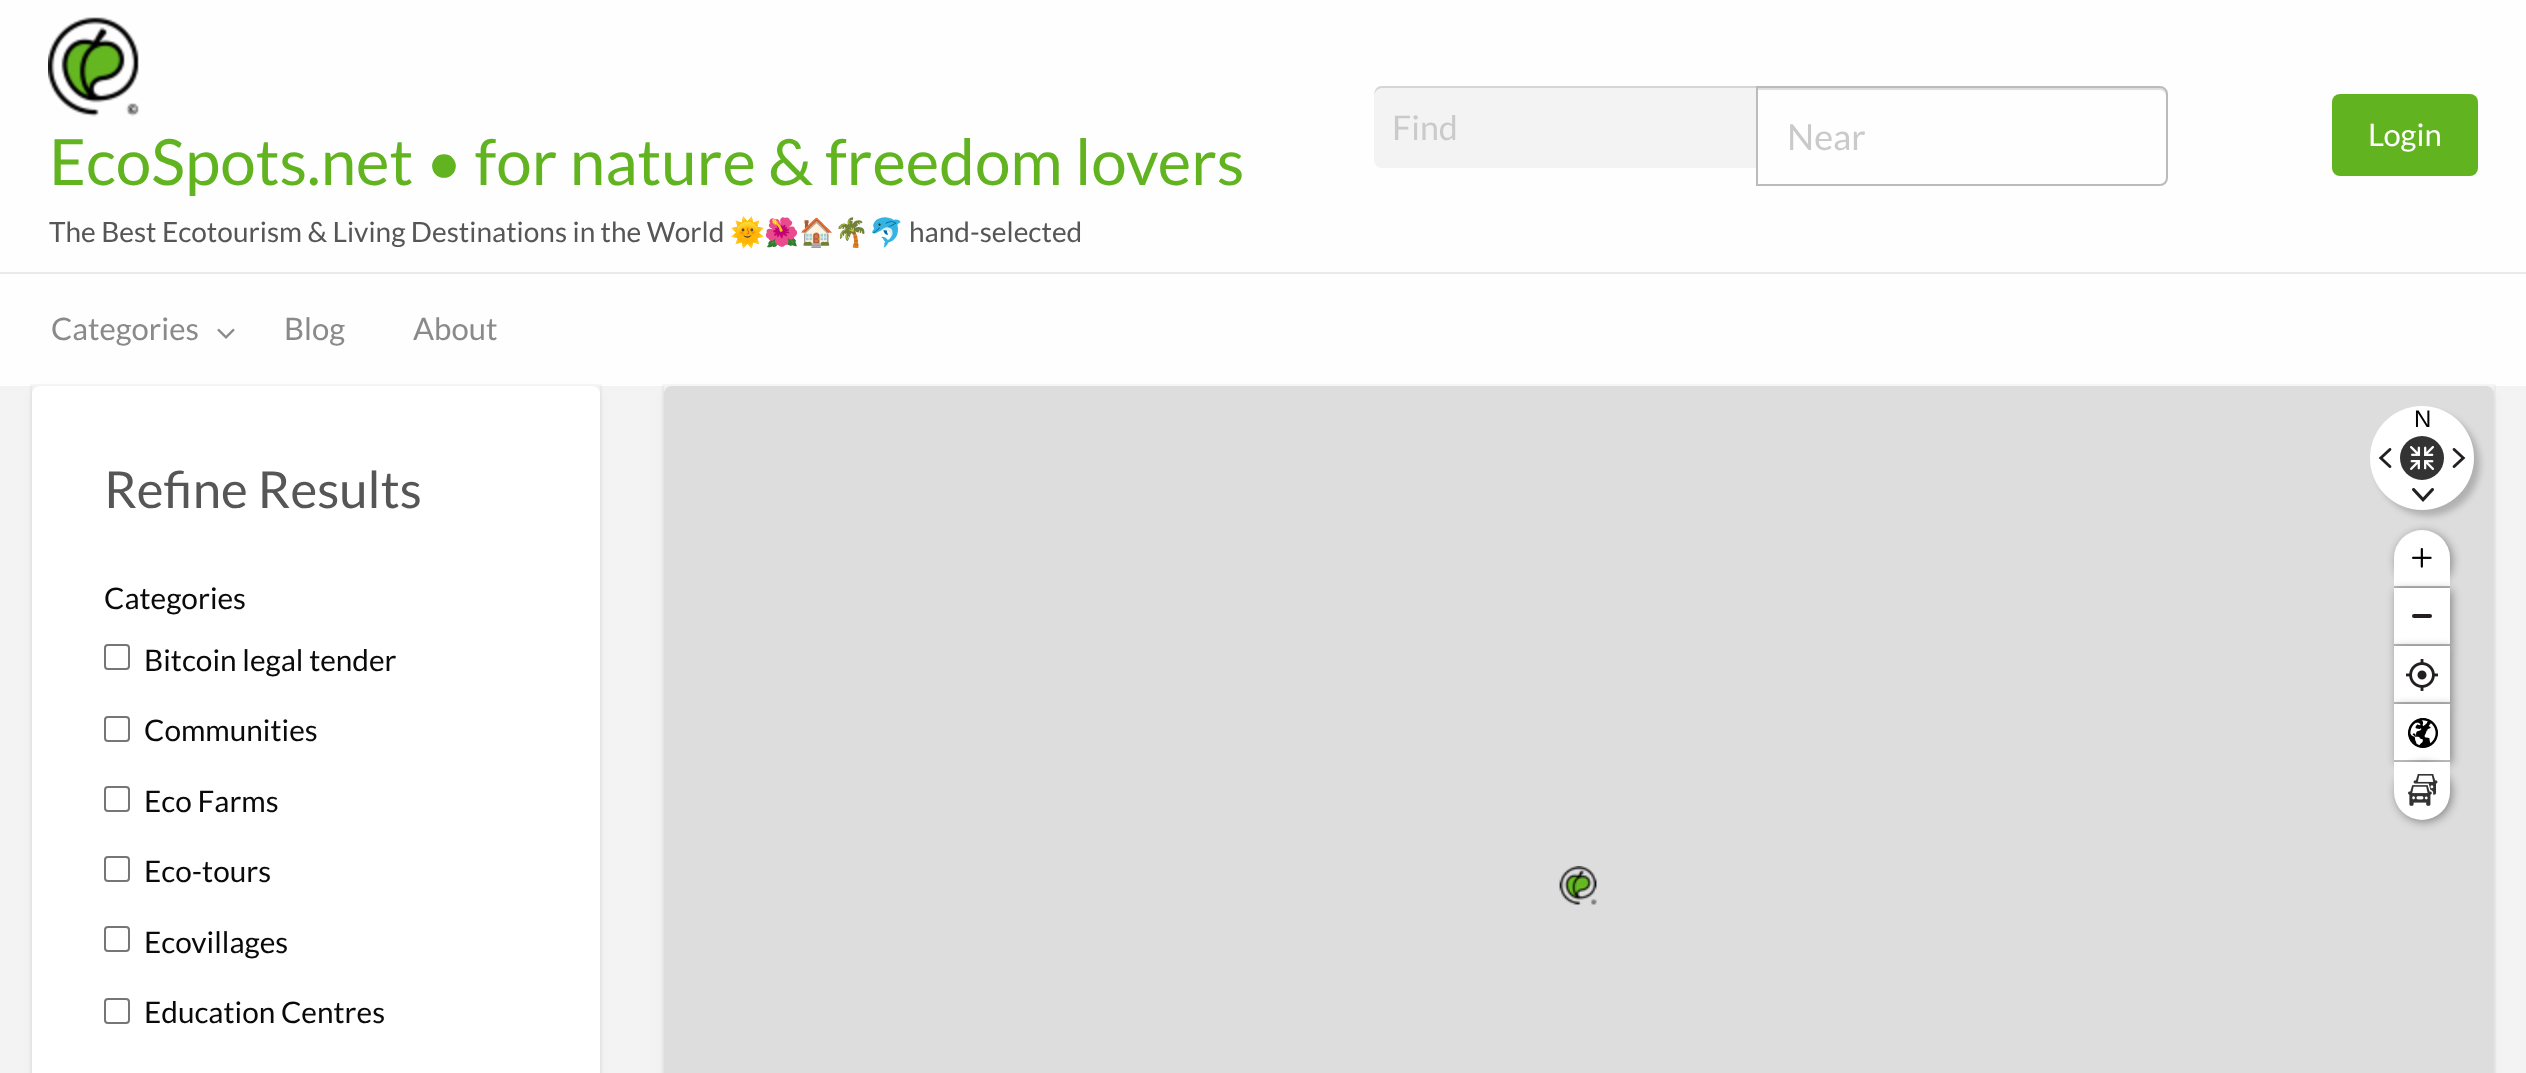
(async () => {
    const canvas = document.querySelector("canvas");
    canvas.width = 2526;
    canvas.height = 1073;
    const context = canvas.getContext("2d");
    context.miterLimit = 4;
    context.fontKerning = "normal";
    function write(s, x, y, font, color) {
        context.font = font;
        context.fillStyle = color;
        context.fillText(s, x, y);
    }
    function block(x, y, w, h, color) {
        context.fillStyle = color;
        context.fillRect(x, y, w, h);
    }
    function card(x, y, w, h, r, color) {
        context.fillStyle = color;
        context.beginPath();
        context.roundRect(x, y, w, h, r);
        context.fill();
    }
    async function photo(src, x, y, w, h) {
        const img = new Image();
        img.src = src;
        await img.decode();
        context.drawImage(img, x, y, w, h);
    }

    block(0, 0, 2526, 1073, "rgb(243, 243, 244)");
    block(0, 0, 2526, 272, "rgb(254, 254, 254)");
    block(0, 272, 2526, 2, "rgb(234, 234, 234)");
    await photo("media/1.png", 48, 17, 91, 100);
    write("EcoSpots.net • for nature & freedom lovers", 49, 185, "63.75px Lato", "rgb(97, 179, 32)");
    write("The Best Ecotourism & Living Destinations in the World", 49, 242, "28px Lato", "rgb(86, 86, 86)");
    write("🌞🌺🏠🌴🐬", 730, 242, "28px Noto Color Emoji", "rgb(86, 86, 86)");
    write("hand-selected", 909, 242, "28px Lato", "rgb(86, 86, 86)");
    context.fillStyle = "rgb(243, 243, 244)";
    context.beginPath();
    context.roundRect(1374, 86, 382, 82, [8, 0, 0, 8]);
    context.fill();
    context.fillStyle = "rgba(0, 0, 0, 0.12)";
    context.beginPath();
    context.moveTo(1382, 88);
    context.lineTo(1756, 88);
    context.lineTo(1756, 86);
    context.lineTo(1382, 86);
    context.bezierCurveTo(1376, 86, 1374, 91, 1374, 96);
    context.bezierCurveTo(1374, 92, 1378, 88, 1382, 88);
    context.closePath();
    context.fill();
    write("Find", 1392, 140, "34px Lato", "rgb(202, 202, 202)");
    context.fillStyle = "rgb(223, 223, 223)";
    context.beginPath();
    context.moveTo(1758, 90);
    context.lineTo(2160, 90);
    context.bezierCurveTo(2163, 90, 2166, 93, 2166, 96);
    context.lineTo(2166, 94);
    context.bezierCurveTo(2166, 91, 2163, 88, 2160, 88);
    context.lineTo(1758, 88);
    context.closePath();
    context.fill();
    context.beginPath();
    context.roundRect(1757, 87, 410, 98, [0, 7, 7, 0]);
    context.strokeStyle = "rgb(187, 187, 187)";
    context.lineWidth = 2;
    context.stroke();
    write("Near", 1787, 150, "36px Lato", "rgb(202, 202, 202)");
    card(2332, 94, 146, 82, 8, "rgb(97, 179, 32)");
    write("Login", 2368, 146, "31px Lato", "rgb(254, 254, 254)");
    block(0, 274, 2526, 112, "rgb(254, 254, 254)");
    write("Categories", 51, 340, "31px Lato", "rgb(138, 138, 138)");
    await photo("media/2.png", 217, 328, 18, 11);
    write("Blog", 284, 340, "31px Lato", "rgb(138, 138, 138)");
    write("About", 413, 340, "31px Lato", "rgb(138, 138, 138)");
    context.fillStyle = "rgba(0, 0, 0, 0.05)";
    context.filter = "blur(5px)";
    context.beginPath();
    context.roundRect(664, 390, 1830, 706, 8);
    context.fill();
    context.filter = "none";
    context.strokeStyle = "rgba(0, 0, 0, 0.03)";
    context.strokeRect(663, 385, 1832, 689);
    card(664, 386, 1830, 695, 8, "rgb(221, 221, 221)");
    context.fillStyle = "rgba(0, 0, 0, 0.2)";
    context.filter = "blur(3px)";
    context.beginPath();
    context.roundRect(2376, 412, 104, 104, 52);
    context.fill();
    context.filter = "none";
    context.fillStyle = "rgb(255, 255, 255)";
    context.beginPath();
    context.arc(2422, 458, 52, 0, Math.PI * 2);
    context.fill();
    write("N", 2414, 427, "24px Liberation Sans", "rgb(0, 0, 0)");
    await photo("media/3.png", 2378, 448, 14, 20);
    context.fillStyle = "rgb(51, 51, 51)";
    context.beginPath();
    context.arc(2422, 458, 22, 0, Math.PI * 2);
    context.fill();
    await photo("media/4.png", 2410, 446, 24, 24);
    await photo("media/5.png", 2452, 448, 14, 20);
    await photo("media/6.png", 2412, 488, 22, 14);
    context.fillStyle = "rgba(0, 0, 0, 0.4)";
    context.filter = "blur(5px)";
    context.beginPath();
    context.roundRect(2396, 532, 56, 58, 28);
    context.fill();
    context.filter = "none";
    context.fillStyle = "rgb(255, 255, 255)";
    context.beginPath();
    context.roundRect(2394, 530, 56, 58, [28, 28, 0, 0]);
    context.fill();
    block(2394, 586, 56, 2, "rgb(183, 183, 183)");
    await photo("media/7.png", 2412, 548, 20, 20);
    context.fillStyle = "rgba(0, 0, 0, 0.4)";
    context.filter = "blur(5px)";
    context.beginPath();
    context.rect(2396, 590, 56, 58);
    context.fill();
    context.filter = "none";
    block(2394, 588, 56, 56, "rgb(255, 255, 255)");
    block(2394, 644, 56, 2, "rgb(183, 183, 183)");
    card(2412, 614, 20, 4, 2, "rgb(35, 31, 32)");
    context.fillStyle = "rgba(0, 0, 0, 0.4)";
    context.filter = "blur(5px)";
    context.beginPath();
    context.rect(2396, 648, 56, 58);
    context.fill();
    context.filter = "none";
    block(2394, 646, 56, 56, "rgb(255, 255, 255)");
    block(2394, 702, 56, 2, "rgb(183, 183, 183)");
    await photo("media/8.png", 2406, 659, 32, 32);
    context.fillStyle = "rgba(0, 0, 0, 0.4)";
    context.filter = "blur(5px)";
    context.beginPath();
    context.rect(2396, 706, 56, 58);
    context.fill();
    context.filter = "none";
    block(2394, 704, 56, 56, "rgb(255, 255, 255)");
    block(2394, 760, 56, 2, "rgb(183, 183, 183)");
    await photo("media/9.png", 2408, 718, 30, 30);
    context.fillStyle = "rgba(0, 0, 0, 0.4)";
    context.filter = "blur(5px)";
    context.beginPath();
    context.roundRect(2396, 764, 56, 58, 28);
    context.fill();
    context.filter = "none";
    context.fillStyle = "rgb(255, 255, 255)";
    context.beginPath();
    context.roundRect(2394, 762, 56, 58, [0, 0, 28, 28]);
    context.fill();
    await photo("media/10.png", 2408, 774, 30, 32);
    await photo("media/11.png", 1559, 866, 38, 39);
    context.fillStyle = "rgba(0, 0, 0, 0.05)";
    context.filter = "blur(5px)";
    context.beginPath();
    context.roundRect(32, 390, 568, 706, 8);
    context.fill();
    context.filter = "none";
    context.strokeRect(31, 385, 570, 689);
    card(32, 386, 568, 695, 8, "rgb(255, 255, 255)");
    write("Refine Results", 104, 508, "51px Lato", "rgb(86, 86, 86)");
    write("Categories", 104, 609, "29.75px Lato", "rgb(10, 10, 10)");
    context.beginPath();
    context.roundRect(105, 645, 24, 24, 3);
    context.strokeStyle = "rgb(118, 118, 118)";
    context.stroke();
    write("Bitcoin legal tender", 144, 671, "29.75px Lato", "rgb(10, 10, 10)");
    context.beginPath();
    context.roundRect(105, 717, 24, 24, 3);
    context.stroke();
    write("Communities", 144, 741, "29.75px Lato", "rgb(10, 10, 10)");
    context.beginPath();
    context.roundRect(105, 787, 24, 24, 3);
    context.stroke();
    write("Eco Farms", 144, 812, "29.75px Lato", "rgb(10, 10, 10)");
    context.beginPath();
    context.roundRect(105, 857, 24, 24, 3);
    context.stroke();
    write("Eco-tours", 144, 882, "29.75px Lato", "rgb(10, 10, 10)");
    context.beginPath();
    context.roundRect(105, 927, 24, 24, 3);
    context.stroke();
    write("Ecovillages", 144, 953, "29.75px Lato", "rgb(10, 10, 10)");
    context.beginPath();
    context.roundRect(105, 999, 24, 24, 3);
    context.stroke();
    write("Education Centres", 144, 1023, "29.75px Lato", "rgb(10, 10, 10)");
})();
